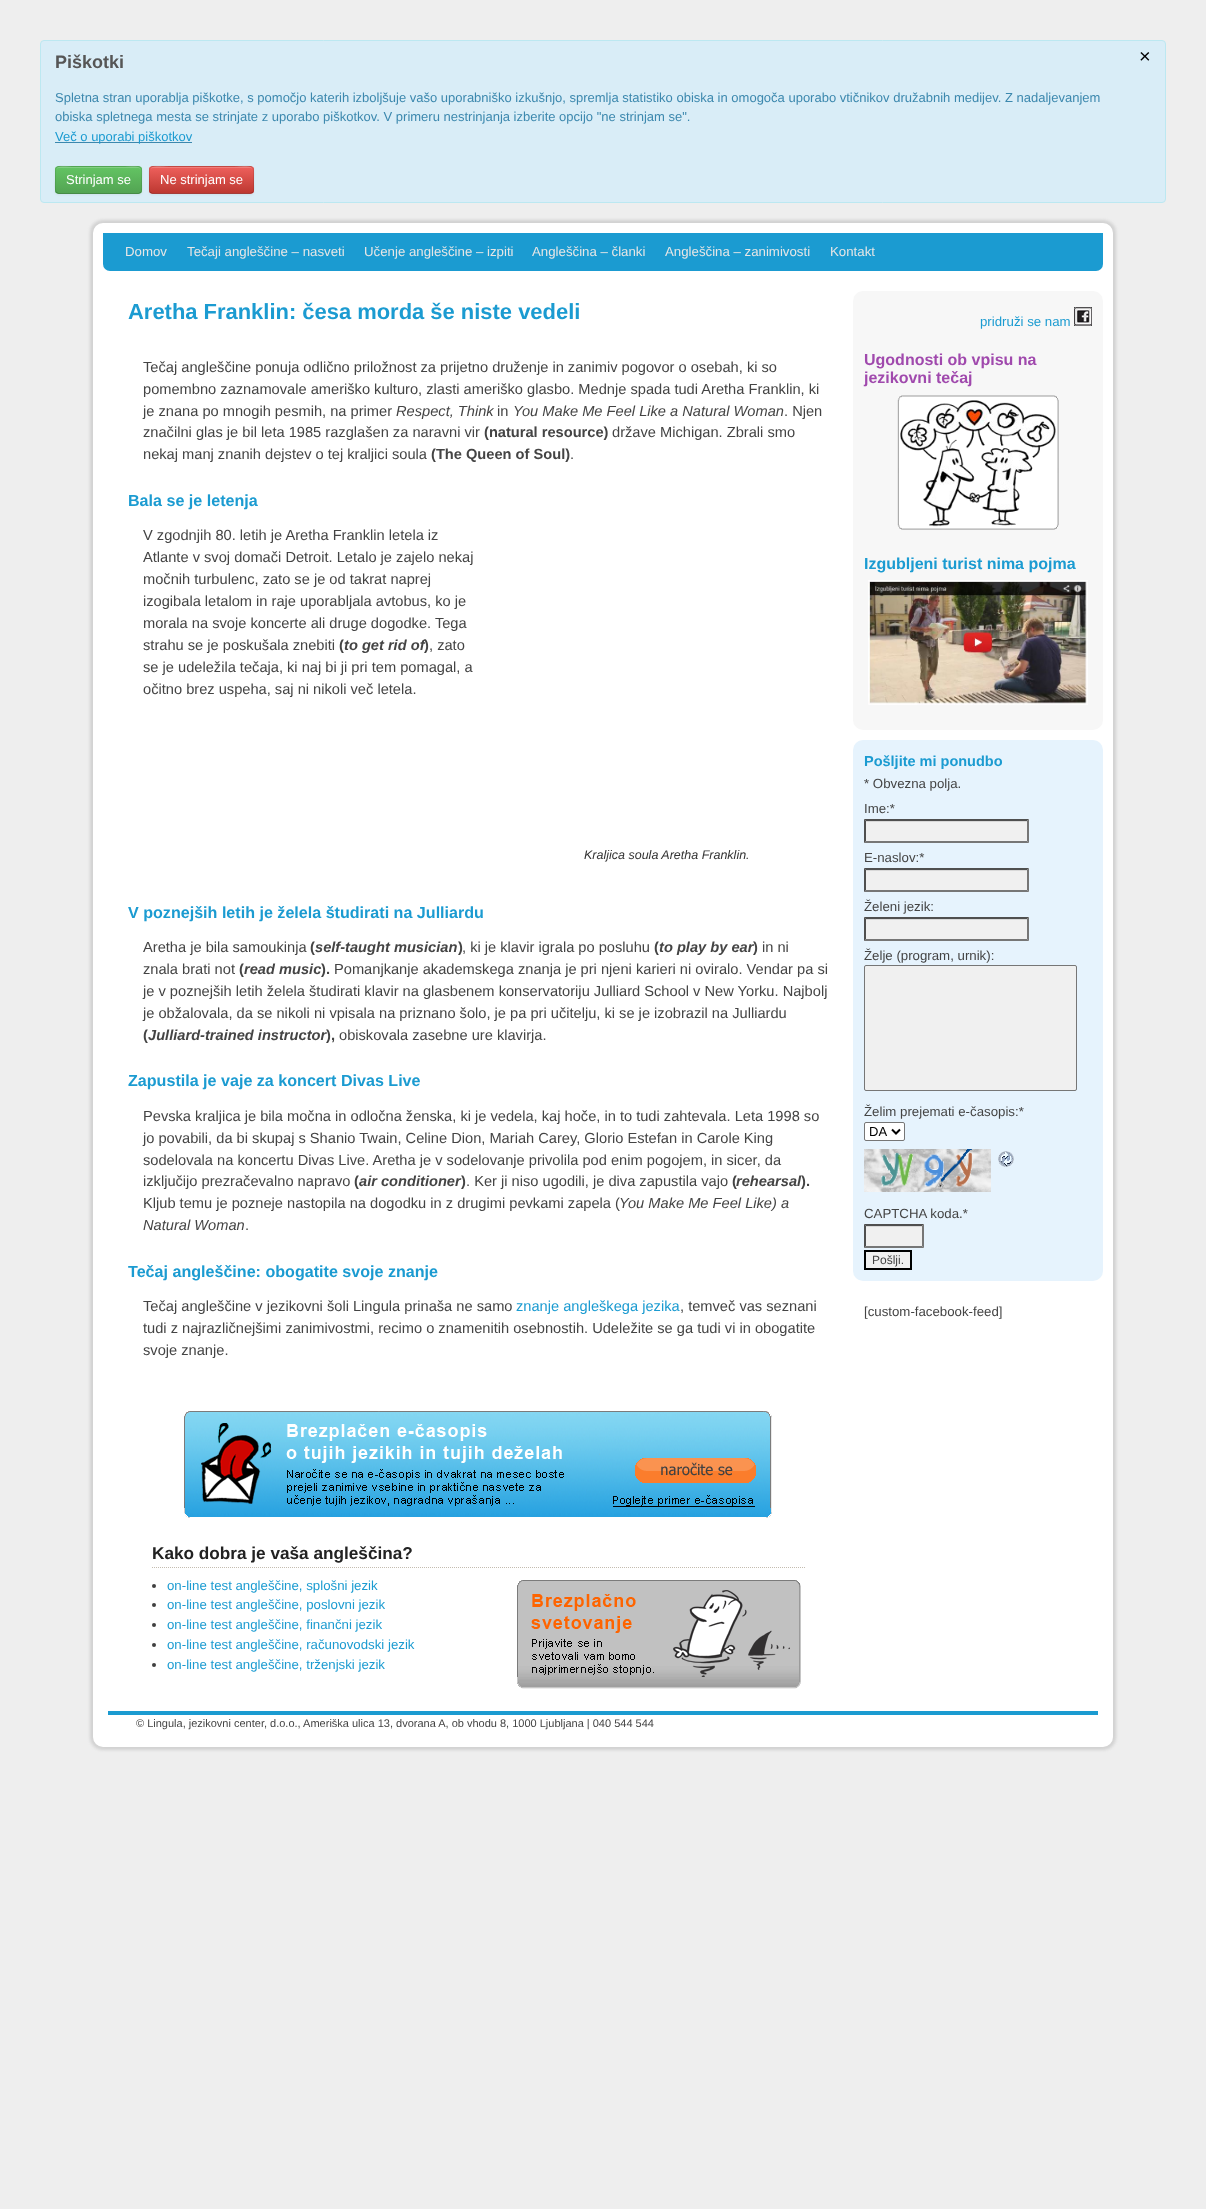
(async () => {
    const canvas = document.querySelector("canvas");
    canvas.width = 1206;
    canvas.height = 2209;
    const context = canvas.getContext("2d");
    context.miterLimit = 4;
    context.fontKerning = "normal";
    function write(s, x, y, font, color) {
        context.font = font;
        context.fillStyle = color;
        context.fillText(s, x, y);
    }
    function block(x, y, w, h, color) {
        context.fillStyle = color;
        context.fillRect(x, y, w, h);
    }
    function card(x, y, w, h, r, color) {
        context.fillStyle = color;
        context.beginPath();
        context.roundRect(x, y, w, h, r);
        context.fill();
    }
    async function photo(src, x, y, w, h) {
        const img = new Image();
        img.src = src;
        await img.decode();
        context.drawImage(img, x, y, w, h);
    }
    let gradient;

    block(0, 0, 1206, 2209, "rgb(238, 238, 238)");
    context.fillStyle = "rgb(217, 237, 247)";
    context.beginPath();
    context.roundRect(40.5, 40.5, 1125, 162, 3.5);
    context.fill();
    context.strokeStyle = "rgb(188, 232, 241)";
    context.stroke();
    write("Piškotki", 55, 68, "bold 18px Liberation Sans", "rgb(86, 86, 86)");
    write("×", 1139, 63, "20px Liberation Sans", "rgb(0, 0, 0)");
    write("Spletna stran uporablja piškotke, s pomočjo katerih izboljšuje vašo uporabniško izkušnjo, spremlja statistiko obiska in omogoča uporabo vtičnikov družabnih medijev. Z nadaljevanjem", 55, 102, "13px Liberation Sans", "rgb(60, 136, 174)");
    write("obiska spletnega mesta se strinjate z uporabo piškotkov. V primeru nestrinjanja izberite opcijo \"ne strinjam se\".", 55, 121, "13px Liberation Sans", "rgb(60, 136, 174)");
    block(55, 142, 137, 1, "rgb(60, 136, 174)");
    write("Več o uporabi piškotkov", 55, 141, "13px Liberation Sans", "rgb(27, 155, 209)");
    context.fillStyle = "rgba(2, 2, 2, 0.05)";
    context.filter = "blur(1px)";
    context.beginPath();
    context.roundRect(55, 167, 87, 28, 4);
    context.fill();
    context.filter = "none";
    card(55, 166, 87, 28, 4, "rgb(92, 184, 92)");
    context.save();
    context.beginPath();
    context.roundRect(55, 166, 87, 28, 4);
    context.clip();
    gradient = context.createLinearGradient(99, 167, 99, 193);
    gradient.addColorStop(0, "rgb(99, 196, 99)");
    gradient.addColorStop(1, "rgb(83, 164, 83)");
    context.fillStyle = gradient;
    context.fillRect(55, 167, 87, 26);
    context.restore();
    context.fillStyle = "rgba(255, 255, 255, 0.2)";
    context.beginPath();
    context.moveTo(59, 168);
    context.lineTo(138, 168);
    context.bezierCurveTo(140, 168, 141, 169, 141, 171);
    context.bezierCurveTo(141, 164, 129, 167, 125, 167);
    context.lineTo(72, 167);
    context.bezierCurveTo(68, 167, 56, 164, 56, 171);
    context.bezierCurveTo(56, 169, 57, 168, 59, 168);
    context.closePath();
    context.fill();
    context.beginPath();
    context.moveTo(140.5, 192.5);
    context.lineTo(138.5, 193.5);
    context.lineTo(58.5, 193.5);
    context.lineTo(56.5, 192.5);
    context.strokeStyle = "rgba(2, 2, 2, 0.25)";
    context.stroke();
    context.beginPath();
    context.moveTo(56.5, 192.5);
    context.bezierCurveTo(54.5, 190, 55.5, 182.5, 55.5, 180);
    context.bezierCurveTo(55.5, 163.5, 54, 166.5, 72, 166.5);
    context.lineTo(125, 166.5);
    context.bezierCurveTo(145, 166.5, 141.5, 164, 141.5, 183.5);
    context.bezierCurveTo(141.5, 186, 142.5, 190.5, 140.5, 192.5);
    context.strokeStyle = "rgba(2, 2, 2, 0.1)";
    context.stroke();
    write("Strinjam se", 66, 184, "13px Liberation Sans", "rgb(255, 255, 255)");
    context.fillStyle = "rgba(2, 2, 2, 0.05)";
    context.filter = "blur(1px)";
    context.beginPath();
    context.roundRect(149, 167, 105, 28, 4);
    context.fill();
    context.filter = "none";
    card(149, 166, 105, 28, 4, "rgb(218, 81, 75)");
    context.save();
    context.beginPath();
    context.roundRect(149, 166, 105, 28, 4);
    context.clip();
    gradient = context.createLinearGradient(202, 167, 202, 193);
    gradient.addColorStop(0, "rgb(238, 96, 92)");
    gradient.addColorStop(1, "rgb(189, 56, 49)");
    context.fillStyle = gradient;
    context.fillRect(149, 167, 105, 26);
    context.restore();
    context.fillStyle = "rgba(255, 255, 255, 0.2)";
    context.beginPath();
    context.moveTo(153, 168);
    context.lineTo(250, 168);
    context.bezierCurveTo(252, 168, 253, 169, 253, 171);
    context.bezierCurveTo(253, 163, 237, 167, 234, 167);
    context.lineTo(169, 167);
    context.bezierCurveTo(166, 167, 150, 163, 150, 171);
    context.bezierCurveTo(150, 169, 151, 168, 153, 168);
    context.closePath();
    context.fill();
    context.beginPath();
    context.moveTo(252.5, 192.5);
    context.lineTo(250, 193.5);
    context.lineTo(152.5, 193.5);
    context.lineTo(150.5, 192.5);
    context.strokeStyle = "rgba(2, 2, 2, 0.25)";
    context.stroke();
    context.beginPath();
    context.moveTo(150.5, 192.5);
    context.bezierCurveTo(148.5, 190.5, 149.5, 186, 149.5, 183.5);
    context.bezierCurveTo(149.5, 163, 146.5, 166.5, 169, 166.5);
    context.lineTo(234, 166.5);
    context.bezierCurveTo(256.5, 166.5, 253.5, 163, 253.5, 183.5);
    context.bezierCurveTo(253.5, 186, 254.5, 190.5, 252.5, 192.5);
    context.strokeStyle = "rgba(2, 2, 2, 0.1)";
    context.stroke();
    write("Ne strinjam se", 160, 184, "13px Liberation Sans", "rgb(255, 255, 255)");
    context.fillStyle = "rgba(127, 127, 127, 0.25)";
    context.filter = "blur(1.5px)";
    context.beginPath();
    context.roundRect(90, 220, 1026, 1530, 13);
    context.fill();
    context.filter = "none";
    card(93, 223, 1020, 1524, 10, "rgb(255, 255, 255)");
    context.fillStyle = "rgb(27, 155, 209)";
    context.beginPath();
    context.roundRect(103, 233, 1000, 38, [0, 0, 7, 7]);
    context.fill();
    write("Domov", 125, 256, "13.25px Liberation Sans", "rgb(230, 230, 230)");
    write("Tečaji angleščine – nasveti", 187, 256, "13.25px Liberation Sans", "rgb(230, 230, 230)");
    write("Učenje angleščine – izpiti", 364, 256, "13.25px Liberation Sans", "rgb(230, 230, 230)");
    write("Angleščina – članki", 532, 256, "13.25px Liberation Sans", "rgb(230, 230, 230)");
    write("Angleščina – zanimivosti", 665, 256, "13.25px Liberation Sans", "rgb(230, 230, 230)");
    write("Kontakt", 830, 256, "13.25px Liberation Sans", "rgb(230, 230, 230)");
    write("Aretha Franklin: česa morda še niste vedeli", 128, 319, "bold 21.95px Liberation Sans", "rgb(27, 155, 209)");
    write("Tečaj angleščine ponuja odlično priložnost za prijetno druženje in zanimiv pogovor o osebah, ki so", 143, 372, "14.65px Liberation Sans", "rgb(68, 68, 68)");
    write("pomembno zaznamovale ameriško kulturo, zlasti ameriško glasbo. Mednje spada tudi Aretha Franklin, ki", 143, 394, "14.65px Liberation Sans", "rgb(68, 68, 68)");
    write("je znana po mnogih pesmih, na primer", 143, 416, "14.65px Liberation Sans", "rgb(68, 68, 68)");
    write("Respect, Think", 396, 416, "italic 14.65px Liberation Sans", "rgb(68, 68, 68)");
    write("in", 497, 416, "14.65px Liberation Sans", "rgb(68, 68, 68)");
    write("You Make Me Feel Like a Natural Woman", 513, 416, "italic 14.65px Liberation Sans", "rgb(68, 68, 68)");
    write(". Njen", 784, 416, "14.65px Liberation Sans", "rgb(68, 68, 68)");
    write("značilni glas je bil leta 1985 razglašen za naravni vir", 143, 437, "14.65px Liberation Sans", "rgb(68, 68, 68)");
    write("(natural resource)", 484, 437, "bold 14.65px Liberation Sans", "rgb(68, 68, 68)");
    write("države Michigan. Zbrali smo", 612, 437, "14.65px Liberation Sans", "rgb(68, 68, 68)");
    write("nekaj manj znanih dejstev o tej kraljici soula", 143, 459, "14.65px Liberation Sans", "rgb(68, 68, 68)");
    write("(The Queen of Soul)", 431, 459, "bold 14.65px Liberation Sans", "rgb(68, 68, 68)");
    write(".", 570, 459, "14.65px Liberation Sans", "rgb(68, 68, 68)");
    write("Bala se je letenja", 128, 506, "bold 16.1px Liberation Sans", "rgb(27, 155, 209)");
    write("V zgodnjih 80. letih je Aretha Franklin letela iz", 143, 540, "14.65px Liberation Sans", "rgb(68, 68, 68)");
    write("Atlante v svoj domači Detroit. Letalo je zajelo nekaj", 143, 562, "14.65px Liberation Sans", "rgb(68, 68, 68)");
    write("močnih turbulenc, zato se je od takrat naprej", 143, 584, "14.65px Liberation Sans", "rgb(68, 68, 68)");
    write("izogibala letalom in raje uporabljala avtobus, ko je", 143, 606, "14.65px Liberation Sans", "rgb(68, 68, 68)");
    write("morala na svoje koncerte ali druge dogodke. Tega", 143, 628, "14.65px Liberation Sans", "rgb(68, 68, 68)");
    write("strahu se je poskušala znebiti", 143, 650, "14.65px Liberation Sans", "rgb(68, 68, 68)");
    write("(", 339, 650, "bold 14.65px Liberation Sans", "rgb(68, 68, 68)");
    write("to get rid of", 344, 650, "italic bold 14.65px Liberation Sans", "rgb(68, 68, 68)");
    write(")", 424, 650, "bold 14.65px Liberation Sans", "rgb(68, 68, 68)");
    write(", zato", 429, 650, "14.65px Liberation Sans", "rgb(68, 68, 68)");
    write("se je udeležila tečaja, ki naj bi ji pri tem pomagal, a", 143, 672, "14.65px Liberation Sans", "rgb(68, 68, 68)");
    write("očitno brez uspeha, saj ni nikoli več letela.", 143, 694, "14.65px Liberation Sans", "rgb(68, 68, 68)");
    write("Kraljica soula Aretha Franklin.", 584, 859, "italic 12.5px Liberation Sans", "rgb(51, 51, 51)");
    write("V poznejših letih je želela študirati na Julliardu", 128, 918, "bold 16.1px Liberation Sans", "rgb(27, 155, 209)");
    write("Aretha je bila samoukinja", 143, 952, "14.65px Liberation Sans", "rgb(68, 68, 68)");
    write("(", 310, 952, "bold 14.65px Liberation Sans", "rgb(68, 68, 68)");
    write("self-taught musician", 315, 952, "italic bold 14.65px Liberation Sans", "rgb(68, 68, 68)");
    write(")", 458, 952, "bold 14.65px Liberation Sans", "rgb(68, 68, 68)");
    write(", ki je klavir igrala po posluhu", 462, 952, "14.65px Liberation Sans", "rgb(68, 68, 68)");
    write("(", 654, 952, "bold 14.65px Liberation Sans", "rgb(68, 68, 68)");
    write("to play by ear", 659, 952, "italic bold 14.65px Liberation Sans", "rgb(68, 68, 68)");
    write(")", 753, 952, "bold 14.65px Liberation Sans", "rgb(68, 68, 68)");
    write("in ni", 762, 952, "14.65px Liberation Sans", "rgb(68, 68, 68)");
    write("znala brati not", 143, 974, "14.65px Liberation Sans", "rgb(68, 68, 68)");
    write("(", 239, 974, "bold 14.65px Liberation Sans", "rgb(68, 68, 68)");
    write("read music", 244, 974, "italic bold 14.65px Liberation Sans", "rgb(68, 68, 68)");
    write(").", 321, 974, "bold 14.65px Liberation Sans", "rgb(68, 68, 68)");
    write("Pomanjkanje akademskega znanja je pri njeni karieri ni oviralo. Vendar pa si", 334, 974, "14.65px Liberation Sans", "rgb(68, 68, 68)");
    write("je v poznejših letih želela študirati klavir na glasbenem konservatoriju Julliard School v New Yorku. Najbolj", 143, 996, "14.65px Liberation Sans", "rgb(68, 68, 68)");
    write("je obžalovala, da se nikoli ni vpisala na priznano šolo, je pa pri učitelju, ki se je izobrazil na Julliardu", 143, 1018, "14.65px Liberation Sans", "rgb(68, 68, 68)");
    write("(", 143, 1040, "bold 14.65px Liberation Sans", "rgb(68, 68, 68)");
    write("Julliard-trained instructor", 148, 1040, "italic bold 14.65px Liberation Sans", "rgb(68, 68, 68)");
    write("),", 326, 1040, "bold 14.65px Liberation Sans", "rgb(68, 68, 68)");
    write("obiskovala zasebne ure klavirja.", 339, 1040, "14.65px Liberation Sans", "rgb(68, 68, 68)");
    write("Zapustila je vaje za koncert Divas Live", 128, 1086, "bold 16.1px Liberation Sans", "rgb(27, 155, 209)");
    write("Pevska kraljica je bila močna in odločna ženska, ki je vedela, kaj hoče, in to tudi zahtevala. Leta 1998 so", 143, 1121, "14.65px Liberation Sans", "rgb(68, 68, 68)");
    write("jo povabili, da bi skupaj s Shanio Twain, Celine Dion, Mariah Carey, Glorio Estefan in Carole King", 143, 1143, "14.65px Liberation Sans", "rgb(68, 68, 68)");
    write("sodelovala na koncertu Divas Live. Aretha je v sodelovanje privolila pod enim pogojem, in sicer, da", 143, 1165, "14.65px Liberation Sans", "rgb(68, 68, 68)");
    write("izključijo prezračevalno napravo", 143, 1186, "14.65px Liberation Sans", "rgb(68, 68, 68)");
    write("(", 354, 1186, "bold 14.65px Liberation Sans", "rgb(68, 68, 68)");
    write("air conditioner", 359, 1186, "italic bold 14.65px Liberation Sans", "rgb(68, 68, 68)");
    write(")", 461, 1186, "bold 14.65px Liberation Sans", "rgb(68, 68, 68)");
    write(". Ker ji niso ugodili, je diva zapustila vajo", 466, 1186, "14.65px Liberation Sans", "rgb(68, 68, 68)");
    write("(", 732, 1186, "bold 14.65px Liberation Sans", "rgb(68, 68, 68)");
    write("rehearsal", 736, 1186, "italic bold 14.65px Liberation Sans", "rgb(68, 68, 68)");
    write(").", 801, 1186, "bold 14.65px Liberation Sans", "rgb(68, 68, 68)");
    write("Kljub temu je pozneje nastopila na dogodku in z drugimi pevkami zapela (", 143, 1208, "14.65px Liberation Sans", "rgb(68, 68, 68)");
    write("You Make Me Feel Like) a", 619, 1208, "italic 14.65px Liberation Sans", "rgb(68, 68, 68)");
    write("Natural Woman", 143, 1230, "italic 14.65px Liberation Sans", "rgb(68, 68, 68)");
    write(".", 245, 1230, "14.65px Liberation Sans", "rgb(68, 68, 68)");
    write("Tečaj angleščine: obogatite svoje znanje", 128, 1277, "bold 16.1px Liberation Sans", "rgb(27, 155, 209)");
    write("Tečaj angleščine v jezikovni šoli Lingula prinaša ne samo", 143, 1311, "14.65px Liberation Sans", "rgb(68, 68, 68)");
    write("znanje angleškega jezika", 516, 1311, "14.65px Liberation Sans", "rgb(27, 155, 209)");
    write(", temveč vas seznani", 680, 1311, "14.65px Liberation Sans", "rgb(68, 68, 68)");
    write("tudi z najrazličnejšimi zanimivostmi, recimo o znamenitih osebnostih. Udeležite se ga tudi vi in obogatite", 143, 1333, "14.65px Liberation Sans", "rgb(68, 68, 68)");
    write("svoje znanje.", 143, 1355, "14.65px Liberation Sans", "rgb(68, 68, 68)");
    await photo("media/1.png", 184, 1411, 588, 107);
    context.beginPath();
    context.moveTo(152, 1567.5);
    context.lineTo(805, 1567.5);
    context.strokeStyle = "rgb(196, 188, 176)";
    context.setLineDash([1, 1]);
    context.stroke();
    write("Kako dobra je vaša angleščina?", 152, 1559, "bold 17.2px Liberation Sans", "rgb(34, 34, 34)");
    context.fillStyle = "rgb(64, 64, 64)";
    context.beginPath();
    context.arc(154, 1586, 2, 0, Math.PI * 2);
    context.fill();
    write("on-line test angleščine, splošni jezik", 167, 1590, "13.25px Liberation Sans", "rgb(27, 155, 209)");
    await photo("media/2.png", 517, 1580, 284, 109);
    context.fillStyle = "rgb(64, 64, 64)";
    context.beginPath();
    context.arc(154, 1605, 2, 0, Math.PI * 2);
    context.fill();
    write("on-line test angleščine, poslovni jezik", 167, 1609, "13.25px Liberation Sans", "rgb(27, 155, 209)");
    context.fillStyle = "rgb(64, 64, 64)";
    context.beginPath();
    context.arc(154, 1625, 2, 0, Math.PI * 2);
    context.fill();
    write("on-line test angleščine, finančni jezik", 167, 1629, "13.25px Liberation Sans", "rgb(27, 155, 209)");
    context.fillStyle = "rgb(64, 64, 64)";
    context.beginPath();
    context.arc(154, 1645, 2, 0, Math.PI * 2);
    context.fill();
    write("on-line test angleščine, računovodski jezik", 167, 1649, "13.25px Liberation Sans", "rgb(27, 155, 209)");
    context.fillStyle = "rgb(64, 64, 64)";
    context.beginPath();
    context.arc(154, 1665, 2, 0, Math.PI * 2);
    context.fill();
    write("on-line test angleščine, trženjski jezik", 167, 1669, "13.25px Liberation Sans", "rgb(27, 155, 209)");
    card(853, 291, 250, 439, 10, "rgb(247, 247, 247)");
    write("pridruži se nam", 980, 326, "13.25px Liberation Sans", "rgb(27, 155, 209)");
    await photo("media/3.png", 1074, 307, 18, 19);
    write("Ugodnosti ob vpisu na", 864, 365, "bold 16px Liberation Sans", "rgb(160, 73, 173)");
    write("jezikovni tečaj", 864, 383, "bold 16px Liberation Sans", "rgb(160, 73, 173)");
    await photo("media/4.png", 897, 395, 162, 135);
    write("Izgubljeni turist nima pojma", 864, 569, "bold 16px Liberation Sans", "rgb(27, 155, 209)");
    await photo("media/5.png", 868, 580, 220, 125);
    card(853, 740, 250, 541, 10, "rgb(230, 243, 253)");
    write("Pošljite mi ponudbo", 864, 766, "bold 14.5px Liberation Sans", "rgb(27, 155, 209)");
    write("* Obvezna polja.", 864, 788, "13.25px Liberation Sans", "rgb(68, 68, 68)");
    write("Ime:*", 864, 813, "13.25px Liberation Sans", "rgb(68, 68, 68)");
    block(864, 819, 165, 24, "rgb(240, 240, 240)");
    block(866, 821, 161, 1, "rgb(216, 216, 216)");
    context.fillStyle = "rgb(79, 79, 79)";
    context.beginPath();
    context.moveTo(864, 819);
    context.lineTo(1029, 819);
    context.lineTo(1027, 821);
    context.lineTo(866, 821);
    context.closePath();
    context.fill();
    context.fillStyle = "rgb(118, 118, 118)";
    context.beginPath();
    context.moveTo(1029, 819);
    context.lineTo(1029, 843);
    context.lineTo(1027, 841);
    context.lineTo(1027, 821);
    context.closePath();
    context.fill();
    context.beginPath();
    context.moveTo(1029, 843);
    context.lineTo(864, 843);
    context.lineTo(866, 841);
    context.lineTo(1027, 841);
    context.closePath();
    context.fill();
    context.fillStyle = "rgb(79, 79, 79)";
    context.beginPath();
    context.moveTo(864, 843);
    context.lineTo(864, 819);
    context.lineTo(866, 821);
    context.lineTo(866, 841);
    context.closePath();
    context.fill();
    write("E-naslov:*", 864, 862, "13.25px Liberation Sans", "rgb(68, 68, 68)");
    block(864, 868, 165, 24, "rgb(240, 240, 240)");
    block(866, 870, 161, 1, "rgb(216, 216, 216)");
    context.fillStyle = "rgb(79, 79, 79)";
    context.beginPath();
    context.moveTo(864, 868);
    context.lineTo(1029, 868);
    context.lineTo(1027, 870);
    context.lineTo(866, 870);
    context.closePath();
    context.fill();
    context.fillStyle = "rgb(118, 118, 118)";
    context.beginPath();
    context.moveTo(1029, 868);
    context.lineTo(1029, 892);
    context.lineTo(1027, 890);
    context.lineTo(1027, 870);
    context.closePath();
    context.fill();
    context.beginPath();
    context.moveTo(1029, 892);
    context.lineTo(864, 892);
    context.lineTo(866, 890);
    context.lineTo(1027, 890);
    context.closePath();
    context.fill();
    context.fillStyle = "rgb(79, 79, 79)";
    context.beginPath();
    context.moveTo(864, 892);
    context.lineTo(864, 868);
    context.lineTo(866, 870);
    context.lineTo(866, 890);
    context.closePath();
    context.fill();
    write("Želeni jezik:", 864, 911, "13.25px Liberation Sans", "rgb(68, 68, 68)");
    block(864, 917, 165, 24, "rgb(240, 240, 240)");
    block(866, 919, 161, 1, "rgb(216, 216, 216)");
    context.fillStyle = "rgb(79, 79, 79)";
    context.beginPath();
    context.moveTo(864, 917);
    context.lineTo(1029, 917);
    context.lineTo(1027, 919);
    context.lineTo(866, 919);
    context.closePath();
    context.fill();
    context.fillStyle = "rgb(118, 118, 118)";
    context.beginPath();
    context.moveTo(1029, 917);
    context.lineTo(1029, 941);
    context.lineTo(1027, 939);
    context.lineTo(1027, 919);
    context.closePath();
    context.fill();
    context.beginPath();
    context.moveTo(1029, 941);
    context.lineTo(864, 941);
    context.lineTo(866, 939);
    context.lineTo(1027, 939);
    context.closePath();
    context.fill();
    context.fillStyle = "rgb(79, 79, 79)";
    context.beginPath();
    context.moveTo(864, 941);
    context.lineTo(864, 917);
    context.lineTo(866, 919);
    context.lineTo(866, 939);
    context.closePath();
    context.fill();
    write("Želje (program, urnik):", 864, 960, "13.25px Liberation Sans", "rgb(68, 68, 68)");
    context.fillStyle = "rgb(240, 240, 240)";
    context.beginPath();
    context.roundRect(864.5, 965.5, 212, 125, 1.5);
    context.fill();
    context.strokeStyle = "rgb(118, 118, 118)";
    context.setLineDash([]);
    context.stroke();
    write("Želim prejemati e-časopis:*", 864, 1116, "13.25px Liberation Sans", "rgb(68, 68, 68)");
    context.fillStyle = "rgb(255, 255, 255)";
    context.beginPath();
    context.roundRect(864.5, 1122.5, 40, 18, 1.5);
    context.fill();
    context.stroke();
    context.beginPath();
    context.moveTo(892, 1129.5);
    context.lineTo(896, 1133.5);
    context.lineTo(900, 1129.5);
    context.strokeStyle = "rgb(0, 0, 0)";
    context.lineWidth = 2;
    context.stroke();
    write("DA", 869, 1136, "13px Liberation Sans", "rgb(0, 0, 0)");
    await photo("media/6.png", 864, 1149, 127, 43);
    await photo("media/7.png", 998, 1151, 16, 16);
    write("CAPTCHA koda.*", 864, 1218, "13.25px Liberation Sans", "rgb(68, 68, 68)");
    block(864, 1224, 60, 24, "rgb(240, 240, 240)");
    block(866, 1226, 56, 1, "rgb(216, 216, 216)");
    context.fillStyle = "rgb(79, 79, 79)";
    context.beginPath();
    context.moveTo(864, 1224);
    context.lineTo(924, 1224);
    context.lineTo(922, 1226);
    context.lineTo(866, 1226);
    context.closePath();
    context.fill();
    context.fillStyle = "rgb(118, 118, 118)";
    context.beginPath();
    context.moveTo(924, 1224);
    context.lineTo(924, 1248);
    context.lineTo(922, 1246);
    context.lineTo(922, 1226);
    context.closePath();
    context.fill();
    context.beginPath();
    context.moveTo(924, 1248);
    context.lineTo(864, 1248);
    context.lineTo(866, 1246);
    context.lineTo(922, 1246);
    context.closePath();
    context.fill();
    context.fillStyle = "rgb(79, 79, 79)";
    context.beginPath();
    context.moveTo(864, 1248);
    context.lineTo(864, 1224);
    context.lineTo(866, 1226);
    context.lineTo(866, 1246);
    context.closePath();
    context.fill();
    context.fillStyle = "rgb(240, 240, 240)";
    context.beginPath();
    context.rect(865, 1251, 46, 18);
    context.fill();
    context.stroke();
    write("Pošlji.", 872, 1264, "12px Liberation Sans", "rgb(68, 68, 68)");
    write("[custom-facebook-feed]", 864, 1316, "13.25px Liberation Sans", "rgb(68, 68, 68)");
    block(108, 1711, 990, 4, "rgb(27, 155, 209)");
    write("© Lingula, jezikovni center, d.o.o., Ameriška ulica 13, dvorana A, ob vhodu 8, 1000 Ljubljana | 040 544 544", 136, 1727, "11px Liberation Sans", "rgb(68, 68, 68)");
})();
